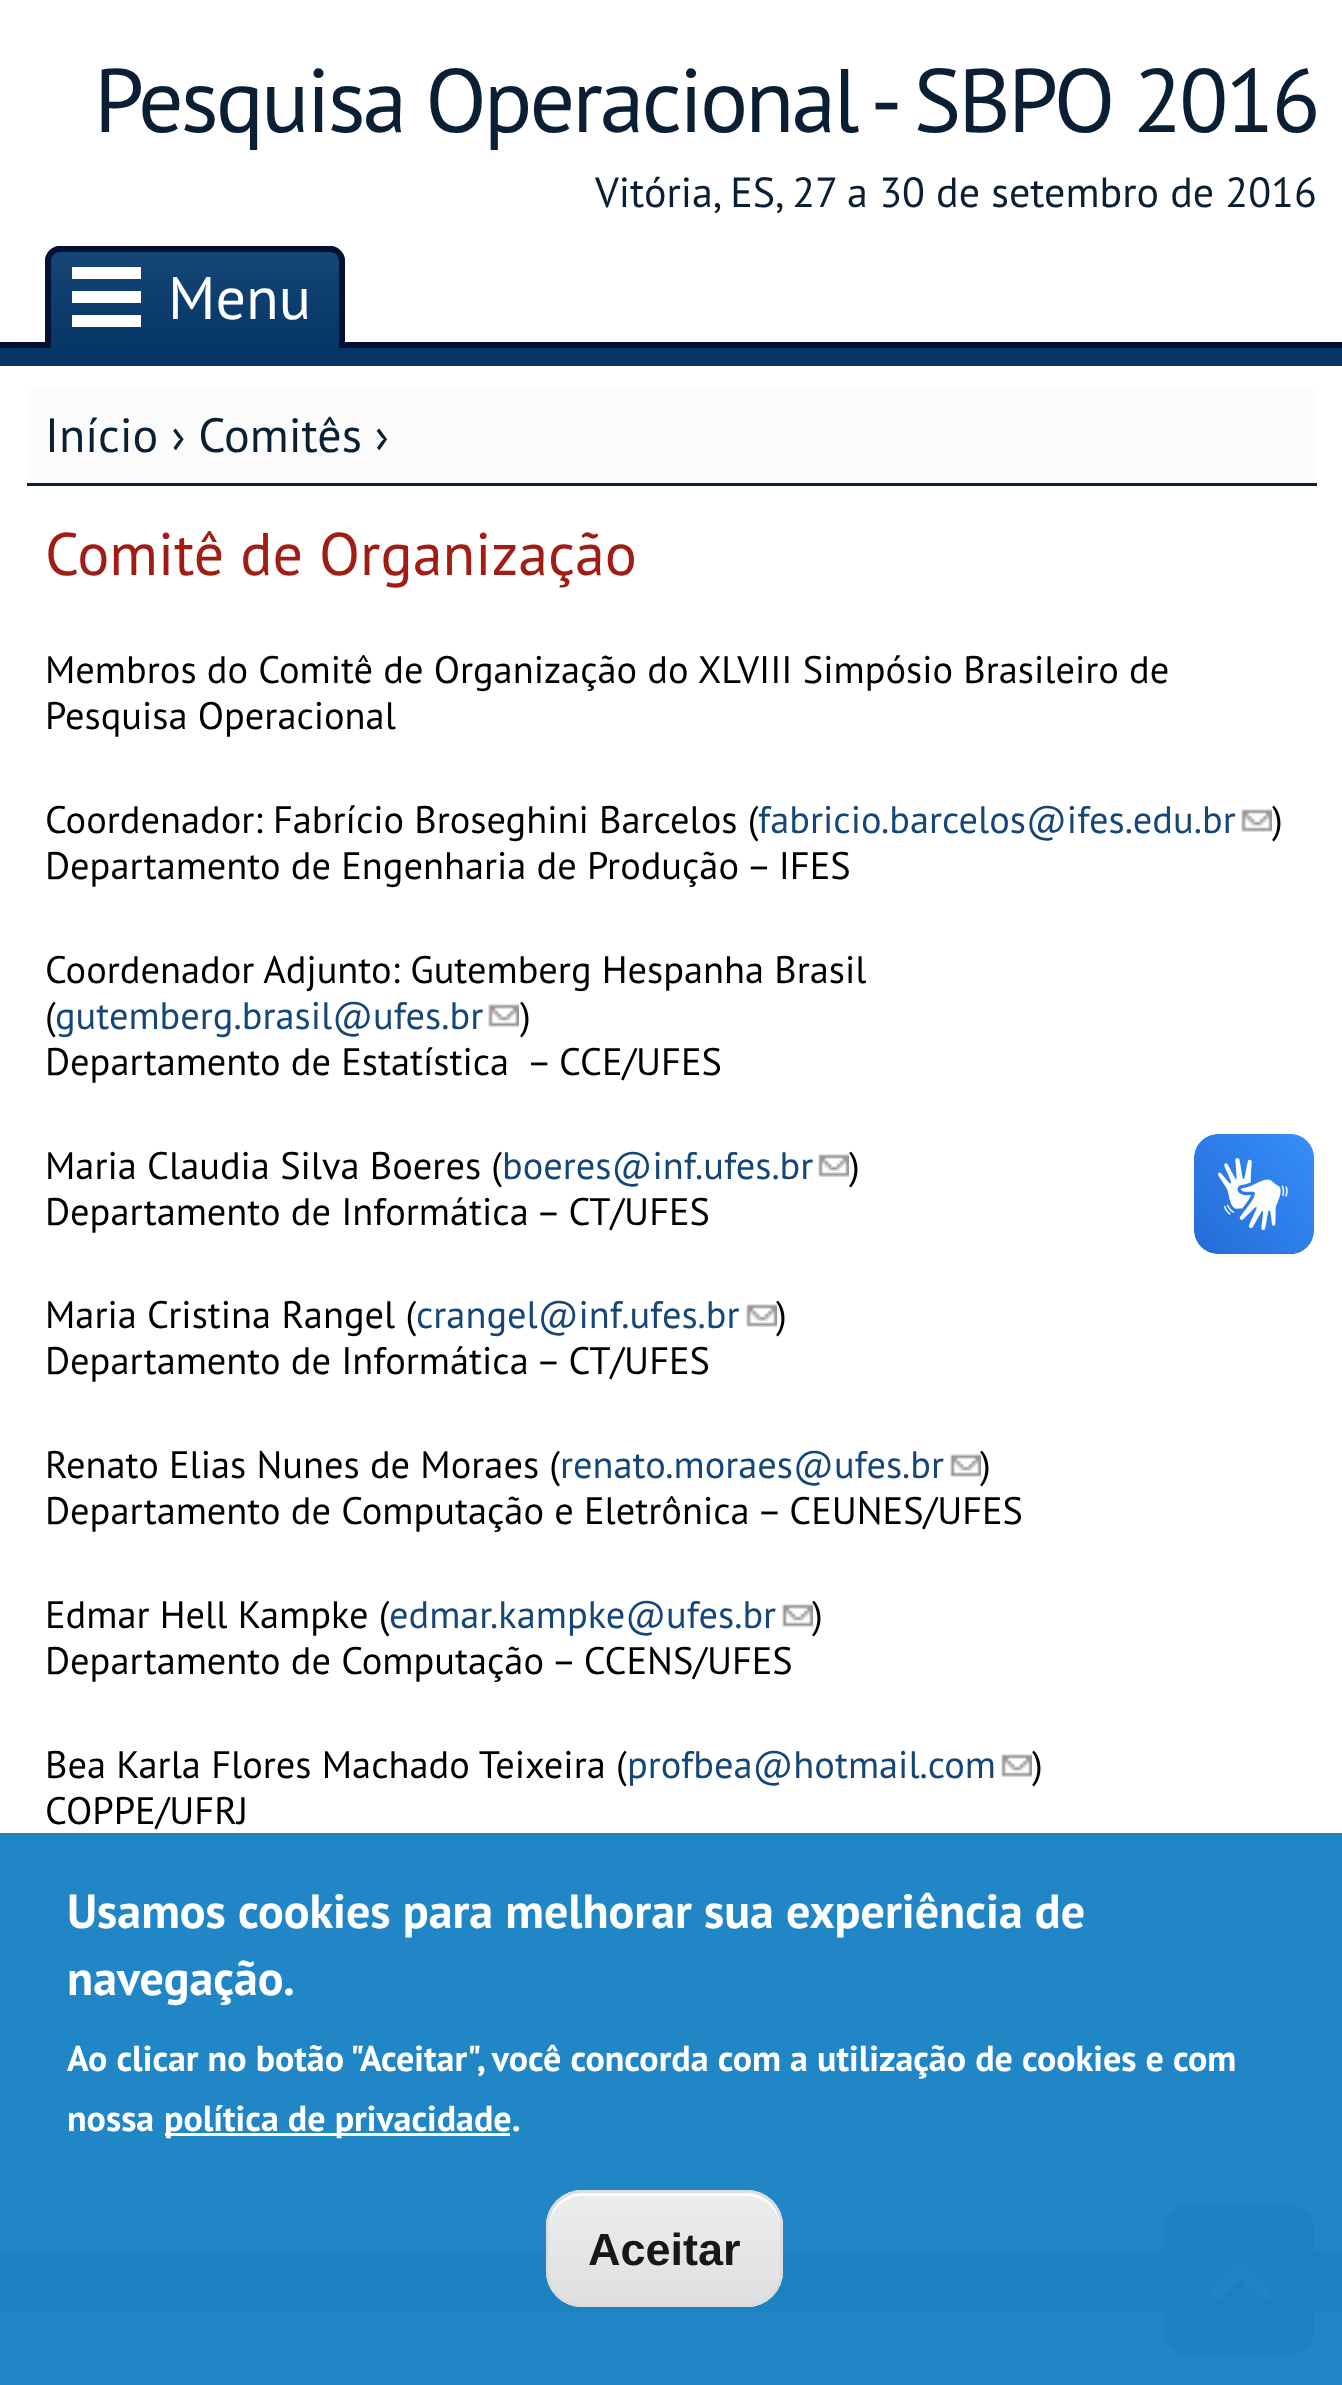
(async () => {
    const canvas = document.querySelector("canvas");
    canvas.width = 1342;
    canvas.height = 2385;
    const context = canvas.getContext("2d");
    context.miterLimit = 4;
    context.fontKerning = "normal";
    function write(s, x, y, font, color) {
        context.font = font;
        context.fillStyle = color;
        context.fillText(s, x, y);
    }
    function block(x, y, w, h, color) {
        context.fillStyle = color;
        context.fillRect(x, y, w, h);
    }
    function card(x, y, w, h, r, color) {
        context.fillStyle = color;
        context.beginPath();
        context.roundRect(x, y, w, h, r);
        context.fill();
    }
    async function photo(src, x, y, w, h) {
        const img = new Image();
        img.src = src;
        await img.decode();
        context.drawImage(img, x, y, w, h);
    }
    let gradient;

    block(0, 0, 1342, 2385, "rgb(255, 255, 255)");
    block(0, 2313, 1342, 72, "rgb(32, 134, 197)");
    context.letterSpacing = "-3px";
    write("Pesquisa Operacional - SBPO 2016", 94, 132, "90px PT Sans", "rgb(10, 31, 51)");
    context.letterSpacing = "0px";
    write("Vitória, ES, 27 a 30 de setembro de 2016", 595, 207, "42px PT Sans", "rgb(10, 31, 51)");
    block(0, 1833, 1342, 417, "rgb(32, 134, 197)");
    block(0, 348, 1342, 18, "rgb(5, 54, 102)");
    block(0, 342, 1342, 6, "rgb(5, 16, 52)");
    context.save();
    context.beginPath();
    context.roundRect(45, 246, 300, 102, [15, 15, 0, 0]);
    context.clip();
    gradient = context.createLinearGradient(195, 156, 195, 252);
    gradient.addColorStop(0, "rgb(21, 70, 117)");
    gradient.addColorStop(1, "rgb(5, 54, 102)");
    context.fillStyle = gradient;
    context.fillRect(45, 246, 300, 6);
    gradient = context.createLinearGradient(195, 252, 195, 348);
    gradient.addColorStop(0, "rgb(21, 70, 117)");
    gradient.addColorStop(1, "rgb(5, 54, 102)");
    context.fillStyle = gradient;
    context.fillRect(45, 252, 300, 96);
    context.restore();
    context.beginPath();
    context.moveTo(60, 246);
    context.lineTo(330, 246);
    context.bezierCurveTo(338, 246, 345, 253, 345, 261);
    context.lineTo(345, 348);
    context.lineTo(45, 348);
    context.lineTo(45, 261);
    context.bezierCurveTo(45, 253, 52, 246, 60, 246);
    context.closePath();
    context.moveTo(60, 252);
    context.lineTo(330, 252);
    context.bezierCurveTo(335, 252, 339, 256, 339, 261);
    context.lineTo(339, 348);
    context.lineTo(51, 348);
    context.lineTo(51, 261);
    context.bezierCurveTo(51, 256, 55, 252, 60, 252);
    context.closePath();
    context.fill("evenodd");
    block(72, 267, 69, 12, "rgb(255, 255, 255)");
    block(72, 291, 69, 12, "rgb(255, 255, 255)");
    block(72, 315, 69, 12, "rgb(255, 255, 255)");
    write("Menu", 168, 319, "60px PT Sans", "rgb(255, 255, 255)");
    block(27, 390, 1290, 93, "rgb(251, 251, 251)");
    block(27, 483, 1290, 3, "rgb(10, 31, 51)");
    write("Início › Comitês ›", 45, 452, "48px PT Sans", "rgb(10, 31, 51)");
    write("Comitê de Organização", 45, 575, "60px PT Sans", "rgb(161, 29, 20)");
    write("Membros do Comitê de Organização do XLVIII Simpósio Brasileiro de", 45, 683, "38.4px PT Sans", "rgb(0, 0, 0)");
    write("Pesquisa Operacional", 45, 729, "38.4px PT Sans", "rgb(0, 0, 0)");
    write("Coordenador: Fabrício Broseghini Barcelos (", 45, 833, "38.4px PT Sans", "rgb(0, 0, 0)");
    write("fabricio.barcelos@ifes.edu.br", 758, 833, "38.4px PT Sans", "rgb(21, 70, 120)");
    await photo("media/1.png", 1241, 809, 31, 23);
    write(")", 1272, 833, "38.4px PT Sans", "rgb(0, 0, 0)");
    write("Departamento de Engenharia de Produção – IFES", 45, 879, "38.4px PT Sans", "rgb(0, 0, 0)");
    write("Coordenador Adjunto: Gutemberg Hespanha Brasil", 45, 983, "38.4px PT Sans", "rgb(0, 0, 0)");
    write("(", 45, 1029, "38.4px PT Sans", "rgb(0, 0, 0)");
    write("gutemberg.brasil@ufes.br", 55, 1029, "38.4px PT Sans", "rgb(21, 70, 120)");
    await photo("media/2.png", 488, 1004, 31, 23);
    write(")", 520, 1029, "38.4px PT Sans", "rgb(0, 0, 0)");
    write("Departamento de Estatística  – CCE/UFES", 45, 1075, "38.4px PT Sans", "rgb(0, 0, 0)");
    write("Maria Claudia Silva Boeres (", 45, 1179, "38.4px PT Sans", "rgb(0, 0, 0)");
    write("boeres@inf.ufes.br", 502, 1179, "38.4px PT Sans", "rgb(21, 70, 120)");
    await photo("media/3.png", 818, 1154, 31, 23);
    write(")", 849, 1179, "38.4px PT Sans", "rgb(0, 0, 0)");
    write("Departamento de Informática – CT/UFES", 45, 1225, "38.4px PT Sans", "rgb(0, 0, 0)");
    write("Maria Cristina Rangel (", 45, 1328, "38.4px PT Sans", "rgb(0, 0, 0)");
    write("crangel@inf.ufes.br", 416, 1328, "38.4px PT Sans", "rgb(21, 70, 120)");
    await photo("media/1.png", 746, 1304, 31, 23);
    write(")", 776, 1328, "38.4px PT Sans", "rgb(0, 0, 0)");
    write("Departamento de Informática – CT/UFES", 45, 1374, "38.4px PT Sans", "rgb(0, 0, 0)");
    write("Renato Elias Nunes de Moraes (", 45, 1478, "38.4px PT Sans", "rgb(0, 0, 0)");
    write("renato.moraes@ufes.br", 560, 1478, "38.4px PT Sans", "rgb(21, 70, 120)");
    await photo("media/3.png", 950, 1454, 31, 23);
    write(")", 980, 1478, "38.4px PT Sans", "rgb(0, 0, 0)");
    write("Departamento de Computação e Eletrônica – CEUNES/UFES", 45, 1524, "38.4px PT Sans", "rgb(0, 0, 0)");
    write("Edmar Hell Kampke (", 45, 1628, "38.4px PT Sans", "rgb(0, 0, 0)");
    write("edmar.kampke@ufes.br", 389, 1628, "38.4px PT Sans", "rgb(21, 70, 120)");
    await photo("media/3.png", 782, 1604, 31, 23);
    write(")", 812, 1628, "38.4px PT Sans", "rgb(0, 0, 0)");
    write("Departamento de Computação – CCENS/UFES", 45, 1674, "38.4px PT Sans", "rgb(0, 0, 0)");
    write("Bea Karla Flores Machado Teixeira (", 45, 1778, "38.4px PT Sans", "rgb(0, 0, 0)");
    write("profbea@hotmail.com", 627, 1778, "38.4px PT Sans", "rgb(21, 70, 120)");
    await photo("media/3.png", 1001, 1754, 31, 23);
    write(")", 1032, 1778, "38.4px PT Sans", "rgb(0, 0, 0)");
    write("COPPE/UFRJ", 45, 1824, "38.4px PT Sans", "rgb(0, 0, 0)");
    block(0, 2250, 1342, 63, "rgb(28, 130, 193)");
    await photo("media/4.png", 1194, 1134, 120, 120);
    await photo("media/5.png", 1194, 1134, 120, 120);
    write("Usamos cookies para melhorar sua experiência de", 67, 1928, "bold 48px PT Sans", "rgb(255, 255, 255)");
    write("navegação.", 67, 1995, "bold 48px PT Sans", "rgb(255, 255, 255)");
    write("Ao clicar no botão \"Aceitar\", você concorda com a utilização de cookies e com", 67, 2071, "bold 36px PT Sans", "rgb(255, 255, 255)");
    write("nossa", 67, 2131, "bold 36px PT Sans", "rgb(255, 255, 255)");
    block(165, 2133, 345, 3, "rgb(255, 255, 255)");
    write("política de privacidade.", 164, 2131, "bold 36px PT Sans", "rgb(255, 255, 255)");
    card(546, 2190, 237, 117, 36, "rgba(237, 237, 237, 0.9)");
    context.save();
    context.beginPath();
    context.roundRect(546, 2190, 237, 117, 36);
    context.clip();
    gradient = context.createLinearGradient(665, 2082, 665, 2193);
    gradient.addColorStop(0.05, "rgb(239, 239, 239)");
    gradient.addColorStop(1, "rgb(226, 226, 226)");
    context.fillStyle = gradient;
    context.fillRect(567, 2190, 195, 3);
    gradient = context.createLinearGradient(665, 2193, 665, 2304);
    gradient.addColorStop(0.05, "rgba(237, 237, 237, 0.9)");
    gradient.addColorStop(1, "rgba(223, 223, 223, 0.9)");
    context.fillStyle = gradient;
    context.fillRect(546, 2193, 237, 111);
    gradient = context.createLinearGradient(665, 2304, 665, 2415);
    gradient.addColorStop(0.05, "rgb(235, 235, 235)");
    gradient.addColorStop(1, "rgb(222, 222, 222)");
    context.fillStyle = gradient;
    context.fillRect(567, 2304, 195, 3);
    context.restore();
    context.fillStyle = "rgb(255, 255, 255)";
    context.beginPath();
    context.moveTo(582, 2196);
    context.lineTo(747, 2196);
    context.bezierCurveTo(765, 2196, 780, 2211, 780, 2229);
    context.lineTo(780, 2226);
    context.bezierCurveTo(780, 2208, 765, 2193, 747, 2193);
    context.lineTo(582, 2193);
    context.bezierCurveTo(564, 2193, 549, 2208, 549, 2226);
    context.lineTo(549, 2229);
    context.bezierCurveTo(549, 2211, 564, 2196, 582, 2196);
    context.closePath();
    context.fill();
    context.beginPath();
    context.roundRect(547.5, 2191.5, 234, 114, 34.5);
    context.strokeStyle = "rgba(220, 220, 220, 0.9)";
    context.lineWidth = 3;
    context.stroke();
    write("Aceitar", 588, 2265, "bold 45px Liberation Sans", "rgb(23, 23, 23)");
    card(1164, 2205, 150, 150, 24, "rgba(27, 129, 192, 0.8)");
    await photo("media/6.png", 1209, 2262, 63, 39);
})();
